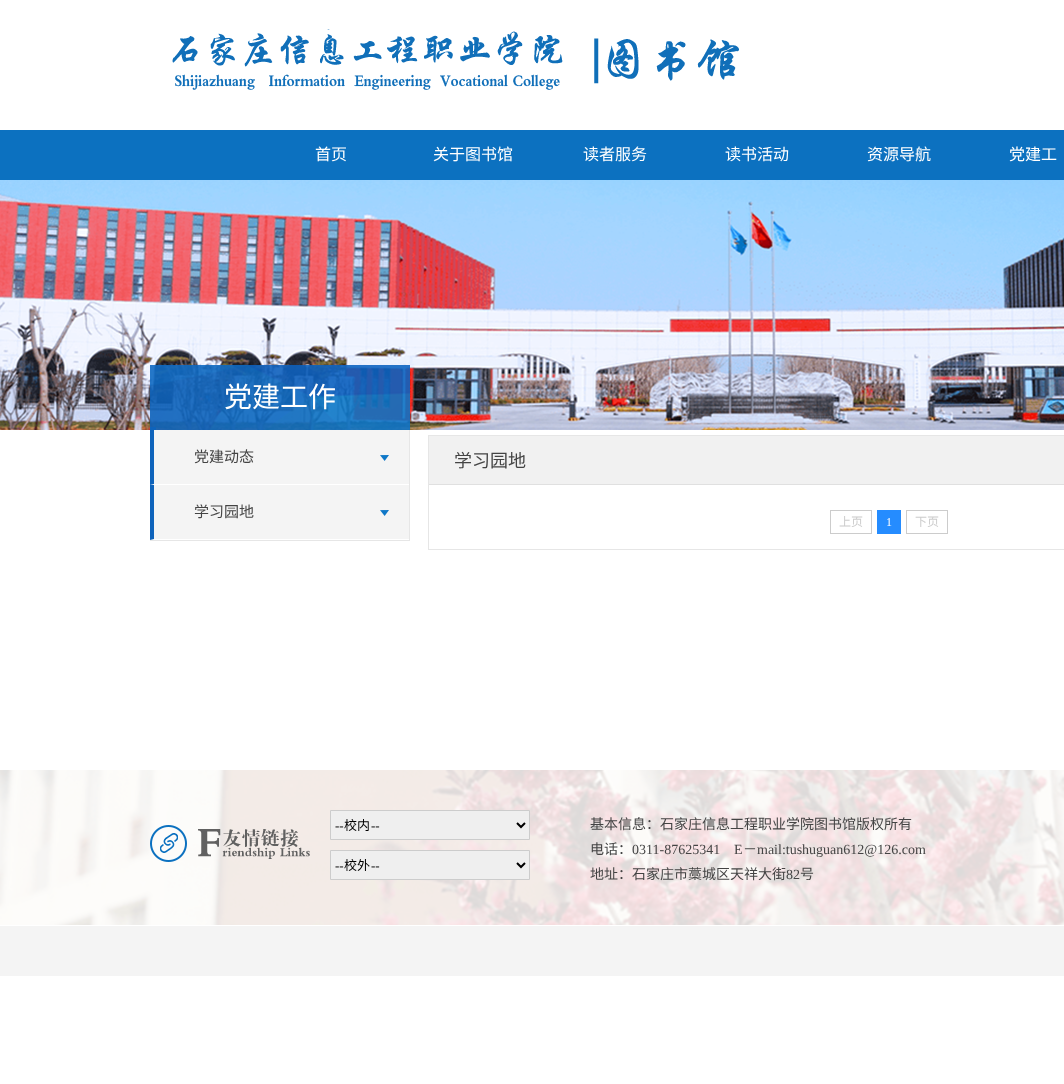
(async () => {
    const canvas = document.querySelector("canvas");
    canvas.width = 1064;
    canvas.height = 1084;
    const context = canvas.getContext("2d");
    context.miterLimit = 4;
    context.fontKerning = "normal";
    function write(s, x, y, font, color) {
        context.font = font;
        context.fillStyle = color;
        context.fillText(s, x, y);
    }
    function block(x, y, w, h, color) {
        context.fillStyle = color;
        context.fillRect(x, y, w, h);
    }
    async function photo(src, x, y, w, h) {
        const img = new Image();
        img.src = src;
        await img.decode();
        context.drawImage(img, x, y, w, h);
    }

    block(0, 0, 1064, 1084, "rgb(255, 255, 255)");
    await photo("media/1.png", 172, 29, 567, 61);
    block(0, 130, 1064, 50, "rgb(12, 113, 192)");
    write("首页", 315, 160, "16px Noto Sans CJK SC", "rgb(255, 255, 255)");
    write("关于图书馆", 433, 160, "16px Noto Sans CJK SC", "rgb(255, 255, 255)");
    write("读者服务", 583, 160, "16px Noto Sans CJK SC", "rgb(255, 255, 255)");
    write("读书活动", 725, 160, "16px Noto Sans CJK SC", "rgb(255, 255, 255)");
    write("资源导航", 867, 160, "16px Noto Sans CJK SC", "rgb(255, 255, 255)");
    write("党建工", 1009, 160, "16px Noto Sans CJK SC", "rgb(255, 255, 255)");
    await photo("media/2.png", 0, 180, 1064, 250);
    await photo("media/3.png", 150, 365, 260, 65);
    write("党建工作", 224, 407, "28px Noto Sans CJK SC", "rgb(255, 255, 255)");
    block(409, 430, 1, 111, "rgb(230, 230, 230)");
    block(150, 540, 260, 1, "rgb(230, 230, 230)");
    block(150, 430, 259, 110, "rgb(244, 244, 244)");
    context.fillStyle = "rgb(255, 255, 255)";
    context.beginPath();
    context.moveTo(409, 485);
    context.lineTo(150, 485);
    context.lineTo(154, 484);
    context.lineTo(409, 484);
    context.closePath();
    context.fill();
    context.fillStyle = "rgb(14, 99, 187)";
    context.beginPath();
    context.moveTo(150, 485);
    context.lineTo(150, 430);
    context.lineTo(154, 430);
    context.lineTo(154, 484);
    context.closePath();
    context.fill();
    await photo("media/4.png", 380, 455, 9, 6);
    write("党建动态", 194, 462, "15px Noto Sans CJK SC", "rgb(68, 68, 68)");
    context.fillStyle = "rgb(255, 255, 255)";
    context.beginPath();
    context.moveTo(409, 540);
    context.lineTo(150, 540);
    context.lineTo(154, 539);
    context.lineTo(409, 539);
    context.closePath();
    context.fill();
    context.fillStyle = "rgb(14, 99, 187)";
    context.beginPath();
    context.moveTo(150, 540);
    context.lineTo(150, 485);
    context.lineTo(154, 485);
    context.lineTo(154, 539);
    context.closePath();
    context.fill();
    await photo("media/4.png", 380, 510, 9, 6);
    write("学习园地", 194, 517, "15px Noto Sans CJK SC", "rgb(68, 68, 68)");
    context.strokeStyle = "rgb(230, 230, 230)";
    context.strokeRect(428.5, 435.5, 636, 114);
    block(429, 436, 635, 48, "rgb(241, 241, 241)");
    block(429, 484, 635, 1, "rgb(224, 224, 224)");
    write("学习园地", 454, 467, "18px Noto Sans CJK SC", "rgb(68, 68, 68)");
    context.strokeStyle = "rgb(204, 204, 204)";
    context.strokeRect(830.5, 510.5, 41, 23);
    write("上页", 839, 526, "12px Noto Sans CJK SC", "rgb(204, 204, 204)");
    block(877, 510, 24, 24, "rgb(37, 140, 255)");
    write("1", 886, 526, "12px Liberation Serif", "rgb(255, 255, 255)");
    context.strokeRect(906.5, 510.5, 41, 23);
    write("下页", 915, 526, "12px Noto Sans CJK SC", "rgb(204, 204, 204)");
    await photo("media/5.png", 0, 770, 1064, 155);
    await photo("media/6.png", 150, 825, 160, 37);
    context.fillStyle = "rgb(239, 239, 239)";
    context.beginPath();
    context.rect(330.5, 810.5, 199, 29);
    context.fill();
    context.stroke();
    context.beginPath();
    context.moveTo(517, 823);
    context.lineTo(521, 827);
    context.lineTo(525, 823);
    context.strokeStyle = "rgb(0, 0, 0)";
    context.lineWidth = 2;
    context.stroke();
    write("--", 335, 830, "13px Liberation Serif", "rgb(0, 0, 0)");
    write("校内", 344, 830, "13px Noto Sans CJK SC", "rgb(0, 0, 0)");
    write("--", 371, 830, "13px Liberation Serif", "rgb(0, 0, 0)");
    context.fillStyle = "rgb(239, 239, 239)";
    context.beginPath();
    context.rect(330.5, 850.5, 199, 29);
    context.fill();
    context.strokeStyle = "rgb(204, 204, 204)";
    context.lineWidth = 1;
    context.stroke();
    context.beginPath();
    context.moveTo(517, 863);
    context.lineTo(521, 867);
    context.lineTo(525, 863);
    context.strokeStyle = "rgb(0, 0, 0)";
    context.lineWidth = 2;
    context.stroke();
    write("--", 335, 870, "13px Liberation Serif", "rgb(0, 0, 0)");
    write("校外", 344, 870, "13px Noto Sans CJK SC", "rgb(0, 0, 0)");
    write("--", 371, 870, "13px Liberation Serif", "rgb(0, 0, 0)");
    write("基本信息：石家庄信息工程职业学院图书馆版权所有", 590, 829, "14px Noto Sans CJK SC", "rgb(68, 68, 68)");
    write("电话：", 590, 854, "14px Noto Sans CJK SC", "rgb(68, 68, 68)");
    write("0311-87625341", 632, 854, "14px Liberation Serif", "rgb(68, 68, 68)");
    write("E", 734, 854, "14px Liberation Serif", "rgb(68, 68, 68)");
    write("－", 743, 854, "14px Noto Sans CJK SC", "rgb(68, 68, 68)");
    write("mail:tushuguan612@126.com", 757, 854, "14px Liberation Serif", "rgb(68, 68, 68)");
    write("地址：石家庄市藁城区天祥大街", 590, 879, "14px Noto Sans CJK SC", "rgb(68, 68, 68)");
    write("82", 786, 879, "14px Liberation Serif", "rgb(68, 68, 68)");
    write("号", 800, 879, "14px Noto Sans CJK SC", "rgb(68, 68, 68)");
    block(0, 926, 1064, 50, "rgb(244, 244, 244)");
})();
